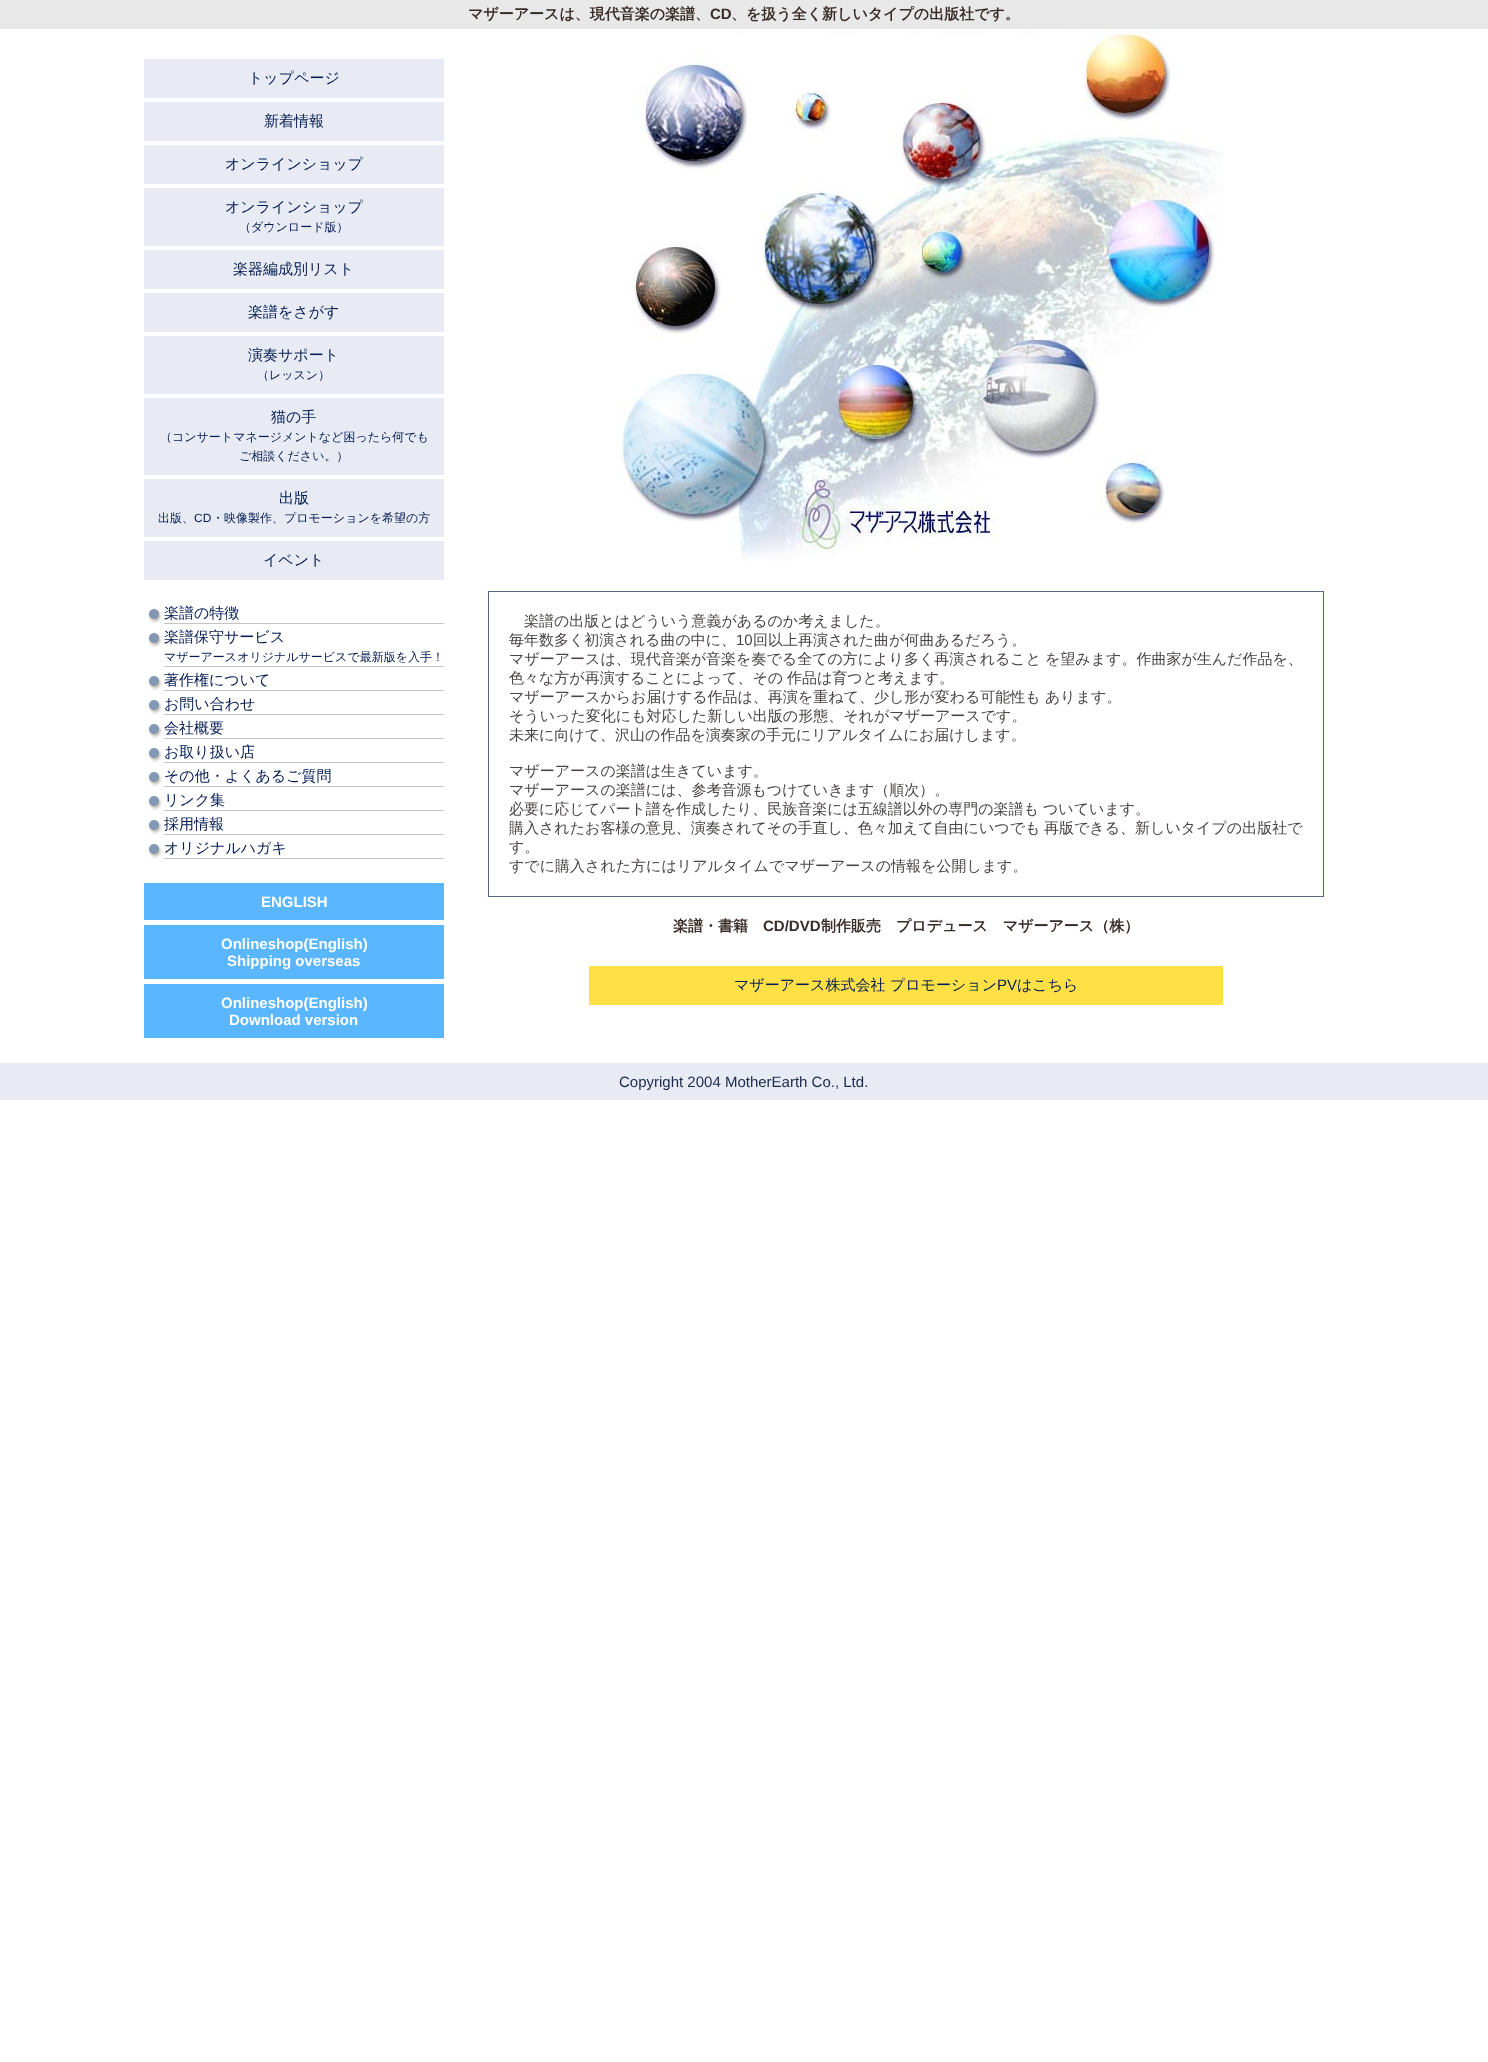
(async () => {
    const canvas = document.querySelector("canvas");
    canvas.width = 1488;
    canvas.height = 2062;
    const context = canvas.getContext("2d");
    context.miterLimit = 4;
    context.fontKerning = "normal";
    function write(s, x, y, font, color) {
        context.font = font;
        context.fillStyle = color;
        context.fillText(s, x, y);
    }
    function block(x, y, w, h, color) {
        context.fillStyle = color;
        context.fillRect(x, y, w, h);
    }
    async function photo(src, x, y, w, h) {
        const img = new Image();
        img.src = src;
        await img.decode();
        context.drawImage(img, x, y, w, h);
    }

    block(0, 0, 1488, 2062, "rgb(255, 255, 255)");
    block(0, 0, 1488, 29, "rgb(232, 232, 232)");
    write("マザーアースは、現代音楽の楽譜、", 468, 19, "bold 15px WenQuanYi Zen Hei", "rgb(57, 44, 39)");
    write("CD", 710, 19, "bold 15px Liberation Sans", "rgb(57, 44, 39)");
    write("、を扱う全く新しいタイプの出版社です。", 731, 19, "bold 15px WenQuanYi Zen Hei", "rgb(57, 44, 39)");
    block(144, 59, 300, 39, "rgb(232, 235, 243)");
    write("トップページ", 248, 83, "500 15px WenQuanYi Zen Hei", "rgb(4, 28, 82)");
    block(144, 102, 300, 39, "rgb(232, 235, 243)");
    write("新着情報", 264, 126, "500 15px WenQuanYi Zen Hei", "rgb(4, 28, 82)");
    block(144, 145, 300, 39, "rgb(232, 235, 243)");
    write("オンラインショップ", 225, 169, "500 15px WenQuanYi Zen Hei", "rgb(4, 28, 82)");
    block(144, 188, 300, 58, "rgb(232, 235, 243)");
    write("オンラインショップ", 225, 212, "500 15px WenQuanYi Zen Hei", "rgb(4, 28, 82)");
    write("（ダウンロード版）", 239, 231, "500 12px WenQuanYi Zen Hei", "rgb(4, 28, 82)");
    block(144, 250, 300, 39, "rgb(232, 235, 243)");
    write("楽器編成別リスト", 233, 274, "500 15px WenQuanYi Zen Hei", "rgb(4, 28, 82)");
    block(144, 293, 300, 39, "rgb(232, 235, 243)");
    write("楽譜をさがす", 248, 317, "500 15px WenQuanYi Zen Hei", "rgb(4, 28, 82)");
    block(144, 336, 300, 58, "rgb(232, 235, 243)");
    write("演奏サポート", 248, 360, "500 15px WenQuanYi Zen Hei", "rgb(4, 28, 82)");
    write("（レッスン）", 257, 379, "500 12px WenQuanYi Zen Hei", "rgb(4, 28, 82)");
    block(144, 398, 300, 77, "rgb(232, 235, 243)");
    write("猫の手", 271, 422, "500 15px WenQuanYi Zen Hei", "rgb(4, 28, 82)");
    write("（コンサートマネージメントなど困ったら何でも", 160, 441, "500 12px WenQuanYi Zen Hei", "rgb(4, 28, 82)");
    write("ご相談ください。）", 239, 460, "500 12px WenQuanYi Zen Hei", "rgb(4, 28, 82)");
    block(144, 479, 300, 58, "rgb(232, 235, 243)");
    write("出版", 279, 503, "500 15px WenQuanYi Zen Hei", "rgb(4, 28, 82)");
    write("出版、", 158, 522, "500 12px WenQuanYi Zen Hei", "rgb(4, 28, 82)");
    write("CD", 194, 522, "12px Liberation Sans", "rgb(4, 28, 82)");
    write("・映像製作、プロモーションを希望の方", 212, 522, "500 12px WenQuanYi Zen Hei", "rgb(4, 28, 82)");
    block(144, 541, 300, 39, "rgb(232, 235, 243)");
    write("イベント", 263, 565, "500 15px WenQuanYi Zen Hei", "rgb(4, 28, 82)");
    await photo("media/1.png", 147, 608, 16, 16);
    block(164, 623, 280, 1, "rgb(196, 196, 196)");
    write("楽譜の特徴", 164, 618, "500 15px WenQuanYi Zen Hei", "rgb(4, 28, 82)");
    await photo("media/1.png", 147, 632, 16, 16);
    block(164, 666, 280, 1, "rgb(196, 196, 196)");
    write("楽譜保守サービス", 164, 642, "500 15px WenQuanYi Zen Hei", "rgb(4, 28, 82)");
    write("マザーアースオリジナルサービスで最新版を入手！", 164, 661, "500 12px WenQuanYi Zen Hei", "rgb(4, 28, 82)");
    await photo("media/1.png", 147, 675, 16, 16);
    block(164, 690, 280, 1, "rgb(196, 196, 196)");
    write("著作権について", 164, 685, "500 15px WenQuanYi Zen Hei", "rgb(4, 28, 82)");
    await photo("media/1.png", 147, 699, 16, 16);
    block(164, 714, 280, 1, "rgb(196, 196, 196)");
    write("お問い合わせ", 164, 709, "500 15px WenQuanYi Zen Hei", "rgb(4, 28, 82)");
    await photo("media/1.png", 147, 723, 16, 16);
    block(164, 738, 280, 1, "rgb(196, 196, 196)");
    write("会社概要", 164, 733, "500 15px WenQuanYi Zen Hei", "rgb(4, 28, 82)");
    await photo("media/1.png", 147, 747, 16, 16);
    block(164, 762, 280, 1, "rgb(196, 196, 196)");
    write("お取り扱い店", 164, 757, "500 15px WenQuanYi Zen Hei", "rgb(4, 28, 82)");
    await photo("media/1.png", 147, 771, 16, 16);
    block(164, 786, 280, 1, "rgb(196, 196, 196)");
    write("その他・よくあるご質問", 164, 781, "500 15px WenQuanYi Zen Hei", "rgb(4, 28, 82)");
    await photo("media/1.png", 147, 795, 16, 16);
    block(164, 810, 280, 1, "rgb(196, 196, 196)");
    write("リンク集", 164, 805, "500 15px WenQuanYi Zen Hei", "rgb(4, 28, 82)");
    await photo("media/1.png", 147, 819, 16, 16);
    block(164, 834, 280, 1, "rgb(196, 196, 196)");
    write("採用情報", 164, 829, "500 15px WenQuanYi Zen Hei", "rgb(4, 28, 82)");
    await photo("media/1.png", 147, 843, 16, 16);
    block(164, 858, 280, 1, "rgb(196, 196, 196)");
    write("オリジナルハガキ", 164, 853, "500 15px WenQuanYi Zen Hei", "rgb(4, 28, 82)");
    block(144, 883, 300, 37, "rgb(90, 182, 255)");
    write("ENGLISH", 261, 907, "bold 15px Liberation Sans", "rgb(255, 255, 255)");
    block(144, 925, 300, 54, "rgb(90, 182, 255)");
    write("Onlineshop(English)", 221, 949, "bold 15px Liberation Sans", "rgb(255, 255, 255)");
    write("Shipping overseas", 227, 966, "bold 15px Liberation Sans", "rgb(255, 255, 255)");
    block(144, 984, 300, 54, "rgb(90, 182, 255)");
    write("Onlineshop(English)", 221, 1008, "bold 15px Liberation Sans", "rgb(255, 255, 255)");
    write("Download version", 229, 1025, "bold 15px Liberation Sans", "rgb(255, 255, 255)");
    await photo("media/2.png", 636, 29, 589, 128);
    await photo("media/3.png", 636, 157, 587, 122);
    await photo("media/4.png", 634, 279, 578, 91);
    await photo("media/5.png", 620, 370, 539, 103);
    await photo("media/6.png", 620, 473, 545, 88);
    context.strokeStyle = "rgb(83, 102, 134)";
    context.strokeRect(488.5, 591.5, 835, 305);
    write("楽譜の出版とはどういう意義があるのか考えました。", 524, 626, "500 15px WenQuanYi Zen Hei", "rgb(75, 68, 68)");
    write("毎年数多く初演される曲の中に、", 509, 645, "500 15px WenQuanYi Zen Hei", "rgb(75, 68, 68)");
    write("10", 736, 645, "15px Liberation Sans", "rgb(75, 68, 68)");
    write("回以上再演された曲が何曲あるだろう。", 753, 645, "500 15px WenQuanYi Zen Hei", "rgb(75, 68, 68)");
    write("マザーアースは、現代音楽が音楽を奏でる全ての方により多く再演されること", 509, 664, "500 15px WenQuanYi Zen Hei", "rgb(75, 68, 68)");
    write("を望みます。作曲家が生んだ作品を、", 1045, 664, "500 15px WenQuanYi Zen Hei", "rgb(75, 68, 68)");
    write("色々な方が再演することによって、その", 509, 683, "500 15px WenQuanYi Zen Hei", "rgb(75, 68, 68)");
    write("作品は育つと考えます。", 787, 683, "500 15px WenQuanYi Zen Hei", "rgb(75, 68, 68)");
    write("マザーアースからお届けする作品は、再演を重ねて、少し形が変わる可能性も", 509, 702, "500 15px WenQuanYi Zen Hei", "rgb(75, 68, 68)");
    write("あります。", 1045, 702, "500 15px WenQuanYi Zen Hei", "rgb(75, 68, 68)");
    write("そういった変化にも対応した新しい出版の形態、それがマザーアースです。", 509, 721, "500 15px WenQuanYi Zen Hei", "rgb(75, 68, 68)");
    write("未来に向けて、沢山の作品を演奏家の手元にリアルタイムにお届けします。", 509, 740, "500 15px WenQuanYi Zen Hei", "rgb(75, 68, 68)");
    write("マザーアースの楽譜は生きています。", 509, 776, "500 15px WenQuanYi Zen Hei", "rgb(75, 68, 68)");
    write("マザーアースの楽譜には、参考音源もつけていきます（順次）。", 509, 795, "500 15px WenQuanYi Zen Hei", "rgb(75, 68, 68)");
    write("必要に応じてパート譜を作成したり、民族音楽には五線譜以外の専門の楽譜も", 509, 814, "500 15px WenQuanYi Zen Hei", "rgb(75, 68, 68)");
    write("ついています。", 1043, 814, "500 15px WenQuanYi Zen Hei", "rgb(75, 68, 68)");
    write("購入されたお客様の意見、演奏されてその手直し、色々加えて自由にいつでも", 509, 833, "500 15px WenQuanYi Zen Hei", "rgb(75, 68, 68)");
    write("再版できる、新しいタイプの出版社で", 1044, 833, "500 15px WenQuanYi Zen Hei", "rgb(75, 68, 68)");
    write("す。", 509, 852, "500 15px WenQuanYi Zen Hei", "rgb(75, 68, 68)");
    write("すでに購入された方にはリアルタイムでマザーアースの情報を公開します。", 509, 871, "500 15px WenQuanYi Zen Hei", "rgb(75, 68, 68)");
    write("楽譜・書籍", 673, 931, "bold 15px WenQuanYi Zen Hei", "rgb(57, 44, 39)");
    write("CD/DVD", 763, 931, "bold 15px Liberation Sans", "rgb(57, 44, 39)");
    write("制作販売　プロデュース　マザーアース（株）", 821, 931, "bold 15px WenQuanYi Zen Hei", "rgb(57, 44, 39)");
    block(589, 966, 634, 39, "rgb(255, 225, 70)");
    write("マザーアース株式会社 プロモーション", 734, 990, "500 15px WenQuanYi Zen Hei", "rgb(4, 28, 82)");
    write("PV", 997, 990, "15px Liberation Sans", "rgb(4, 28, 82)");
    write("はこちら", 1017, 990, "500 15px WenQuanYi Zen Hei", "rgb(4, 28, 82)");
    block(0, 1063, 1488, 37, "rgb(232, 235, 243)");
    write("Copyright 2004 MotherEarth Co., Ltd.", 619, 1087, "15px Liberation Sans", "rgb(27, 41, 77)");
})();
